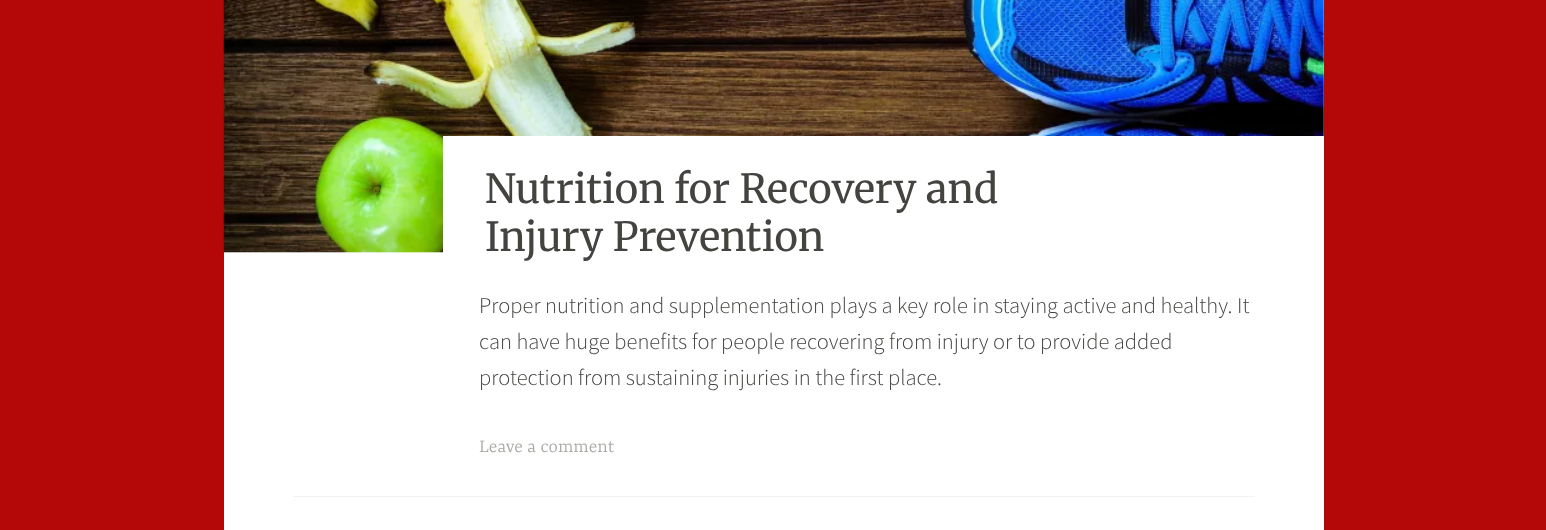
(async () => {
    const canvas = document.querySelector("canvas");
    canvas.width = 1546;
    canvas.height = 530;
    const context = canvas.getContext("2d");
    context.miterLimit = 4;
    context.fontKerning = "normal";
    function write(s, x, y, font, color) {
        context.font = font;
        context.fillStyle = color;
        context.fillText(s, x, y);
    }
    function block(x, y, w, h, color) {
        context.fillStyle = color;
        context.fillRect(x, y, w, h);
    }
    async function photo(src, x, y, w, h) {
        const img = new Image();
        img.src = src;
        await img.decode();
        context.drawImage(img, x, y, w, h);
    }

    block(0, 0, 1546, 530, "rgb(180, 8, 8)");
    block(224, 253, 1100, 277, "rgb(255, 255, 255)");
    block(224, 0, 1100, 253, "rgb(248, 249, 248)");
    await photo("media/1.png", 223, 0, 1101, 253);
    block(443, 136, 881, 117, "rgb(255, 255, 255)");
    write("Nutrition for Recovery and", 485, 203, "300 40px Merriweather", "rgb(68, 67, 64)");
    write("Injury Prevention", 485, 251, "300 40px Merriweather", "rgb(68, 67, 64)");
    write("Proper nutrition and supplementation plays a key role in staying active and healthy. It", 479, 313, "300 22.5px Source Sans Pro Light", "rgb(68, 67, 64)");
    write("can have huge benefits for people recovering from injury or to provide added", 479, 349, "300 22.5px Source Sans Pro Light", "rgb(68, 67, 64)");
    write("protection from sustaining injuries in the first place.", 479, 385, "300 22.5px Source Sans Pro Light", "rgb(68, 67, 64)");
    write("Leave a comment", 479, 452, "300 20px Yrsa", "rgb(168, 166, 161)");
    block(293, 496, 962, 1, "rgb(242, 242, 242)");
})();
